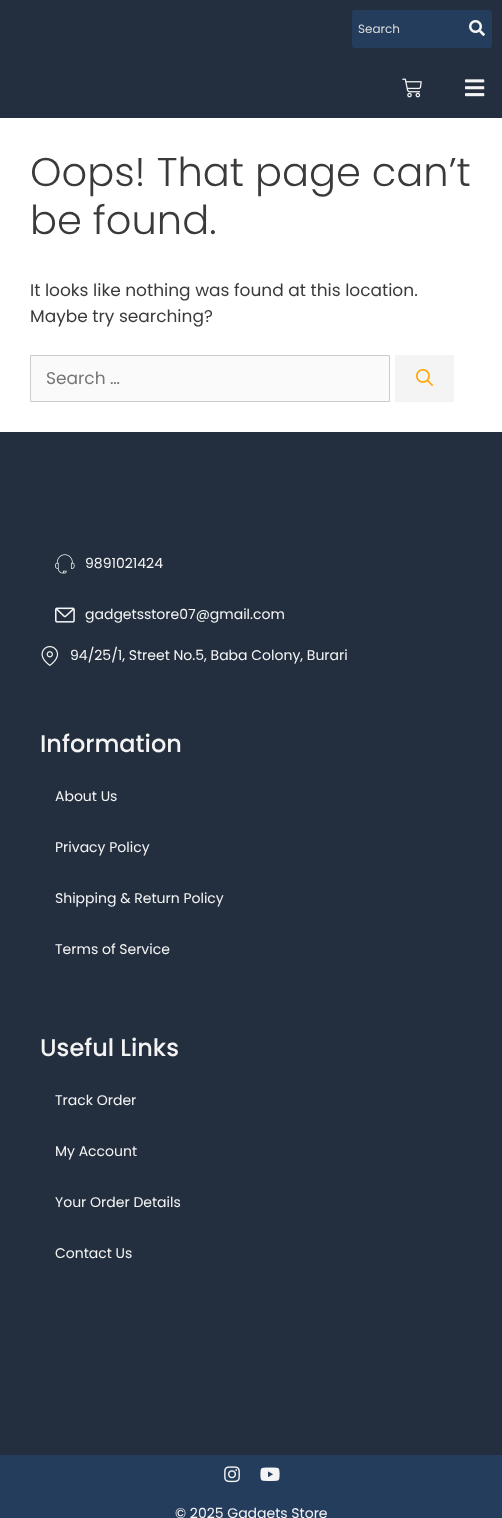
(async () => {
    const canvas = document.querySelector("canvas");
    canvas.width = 502;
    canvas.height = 1518;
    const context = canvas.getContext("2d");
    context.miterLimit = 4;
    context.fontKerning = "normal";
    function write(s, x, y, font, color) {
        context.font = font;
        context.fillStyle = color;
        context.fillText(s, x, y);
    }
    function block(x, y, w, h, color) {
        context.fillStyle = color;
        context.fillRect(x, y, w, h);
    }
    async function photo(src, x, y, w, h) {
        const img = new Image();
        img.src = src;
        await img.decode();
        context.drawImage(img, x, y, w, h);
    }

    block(0, 0, 502, 1518, "rgb(255, 255, 255)");
    block(0, 0, 502, 118, "rgb(35, 47, 62)");
    context.fillStyle = "rgb(36, 61, 92)";
    context.beginPath();
    context.roundRect(352, 10, 110, 38, [3, 0, 0, 3]);
    context.fill();
    write("Search", 358, 33, "12px Poppins", "rgb(219, 219, 219)");
    context.fillStyle = "rgb(36, 61, 92)";
    context.beginPath();
    context.roundRect(462, 10, 30, 38, [0, 3, 3, 0]);
    context.fill();
    await photo("media/1.png", 469, 20, 16, 16);
    await photo("media/2.png", 402, 78, 20, 20);
    await photo("media/3.png", 465, 79, 20, 18);
    write("Oops! That page can’t", 30, 186, "300 40px Poppins", "rgb(58, 58, 58)");
    write("be found.", 30, 234, "300 40px Poppins", "rgb(58, 58, 58)");
    write("It looks like nothing was found at this location.", 30, 296, "17px Poppins", "rgb(58, 58, 58)");
    write("Maybe try searching?", 30, 322, "17px Poppins", "rgb(58, 58, 58)");
    context.fillStyle = "rgb(250, 250, 250)";
    context.beginPath();
    context.rect(30.5, 355.5, 359, 46);
    context.fill();
    context.strokeStyle = "rgb(204, 204, 204)";
    context.stroke();
    write("Search …", 46, 384, "17px Poppins", "rgb(117, 117, 117)");
    block(395, 355, 59, 47, "rgb(244, 244, 244)");
    await photo("media/4.png", 416, 369, 17, 17);
    block(0, 432, 502, 1023, "rgb(35, 47, 62)");
    await photo("media/5.png", 55, 554, 20, 20);
    write("9891021424", 85, 568, "14px Poppins", "rgb(244, 244, 244)");
    await photo("media/6.png", 55, 607, 20, 16);
    write("gadgetsstore07@gmail.com", 85, 619, "14px Poppins", "rgb(244, 244, 244)");
    await photo("media/7.png", 41, 646, 18, 20);
    write("94/25/1, Street No.5, Baba Colony, Burari", 70, 660, "14px Poppins", "rgb(244, 244, 244)");
    write("Information", 40, 752, "500 24px Poppins", "rgb(244, 244, 244)");
    write("About Us", 55, 801, "14px Poppins", "rgb(244, 244, 244)");
    write("Privacy Policy", 55, 852, "14px Poppins", "rgb(244, 244, 244)");
    write("Shipping & Return Policy", 55, 903, "14px Poppins", "rgb(244, 244, 244)");
    write("Terms of Service", 55, 954, "14px Poppins", "rgb(244, 244, 244)");
    write("Useful Links", 40, 1056, "500 24px Poppins", "rgb(244, 244, 244)");
    write("Track Order", 55, 1105, "14px Poppins", "rgb(244, 244, 244)");
    write("My Account", 55, 1156, "14px Poppins", "rgb(244, 244, 244)");
    write("Your Order Details", 55, 1207, "14px Poppins", "rgb(244, 244, 244)");
    write("Contact Us", 55, 1258, "14px Poppins", "rgb(244, 244, 244)");
    block(0, 1455, 502, 63, "rgb(36, 61, 92)");
    await photo("media/8.png", 224, 1466, 16, 17);
    await photo("media/9.png", 260, 1467, 20, 14);
    write("© 2025 Gadgets Store", 175, 1518, "14px Poppins", "rgb(244, 244, 244)");
})();
